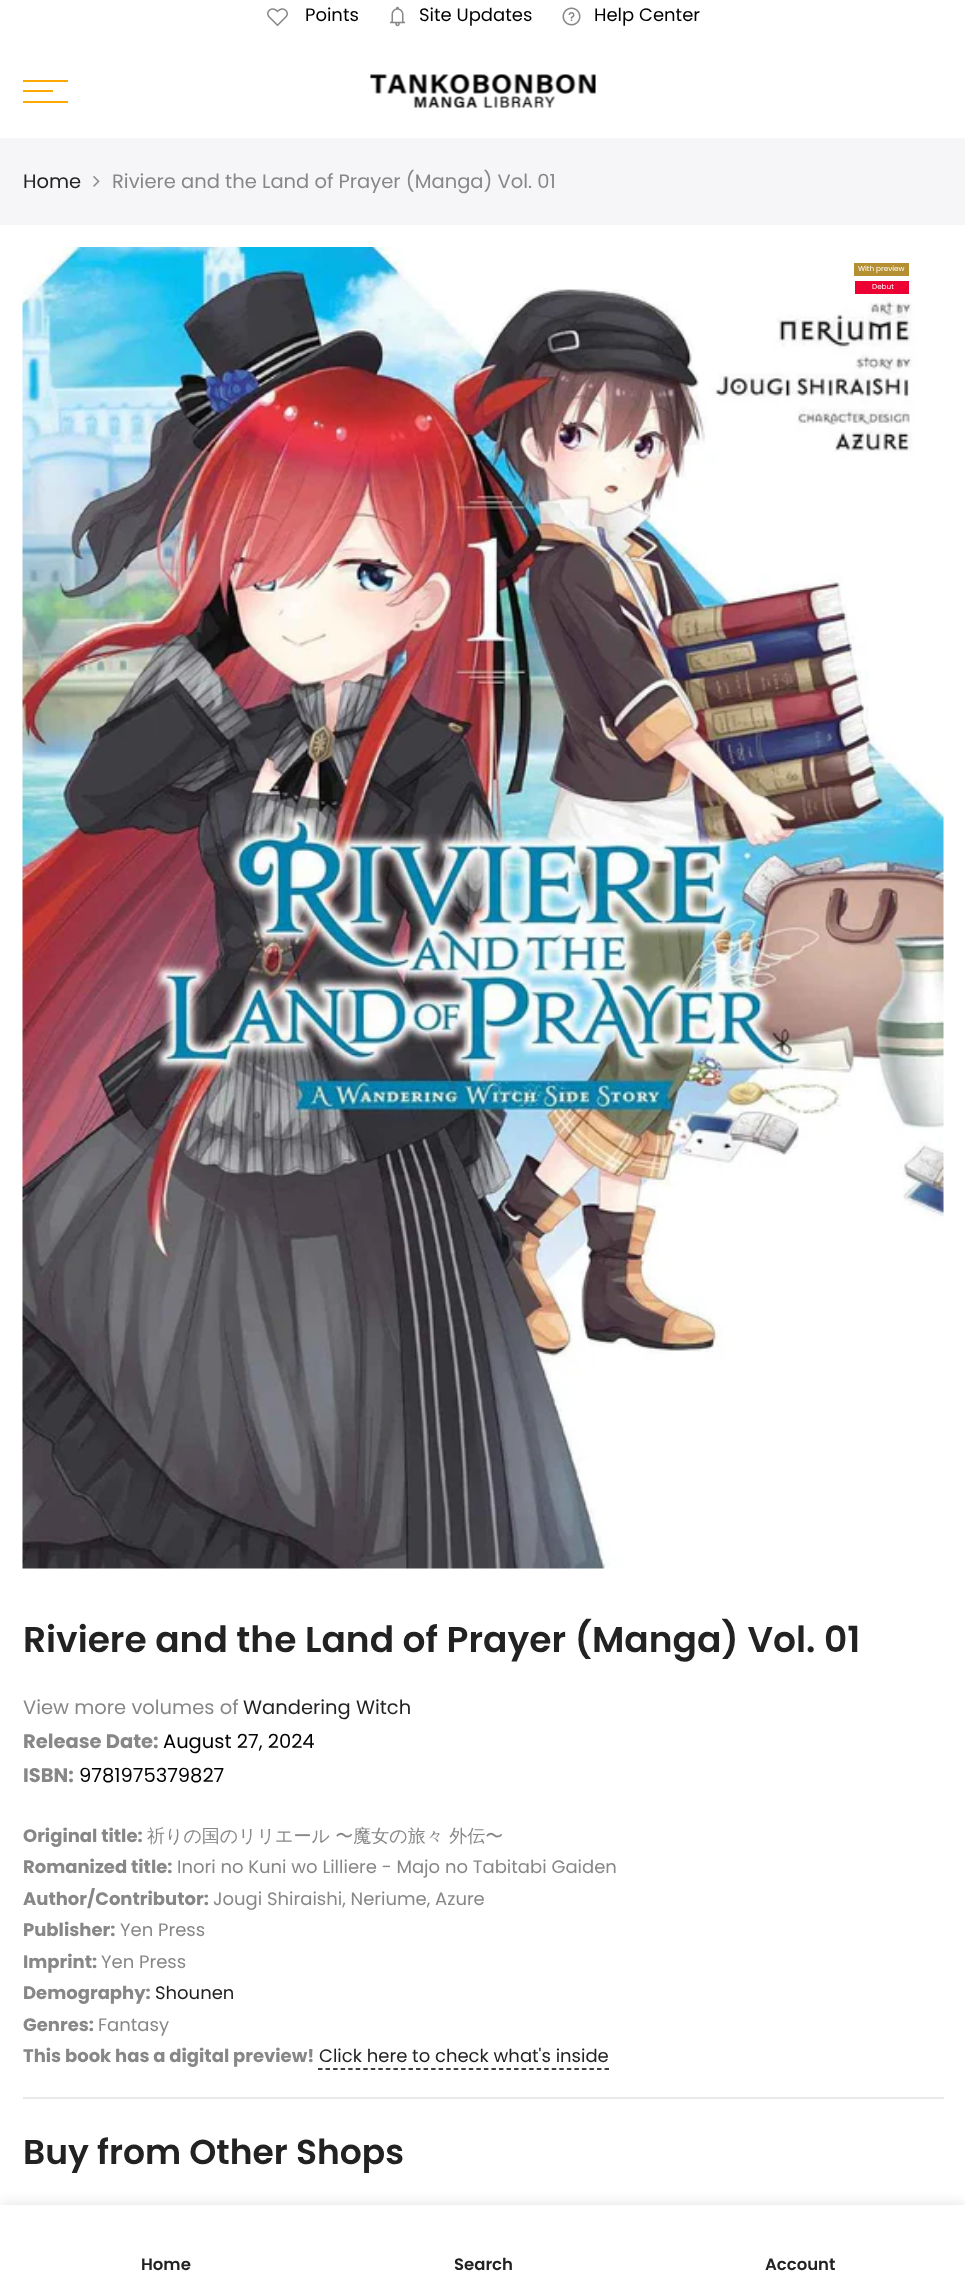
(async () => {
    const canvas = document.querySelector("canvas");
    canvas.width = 965;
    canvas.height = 2287;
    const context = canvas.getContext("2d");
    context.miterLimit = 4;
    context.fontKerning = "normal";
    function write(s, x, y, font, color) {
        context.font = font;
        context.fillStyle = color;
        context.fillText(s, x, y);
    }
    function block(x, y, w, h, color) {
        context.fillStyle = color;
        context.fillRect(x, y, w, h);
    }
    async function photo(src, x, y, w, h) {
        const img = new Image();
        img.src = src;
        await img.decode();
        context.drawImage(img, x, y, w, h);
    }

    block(0, 0, 965, 2287, "rgb(255, 255, 255)");
    await photo("media/1.png", 267, 8, 21, 19);
    write("Points", 305, 21, "18px Poppins", "rgb(0, 0, 0)");
    await photo("media/2.png", 390, 6, 15, 21);
    write("Site Updates", 419, 21, "18px Poppins", "rgb(0, 0, 0)");
    await photo("media/3.png", 562, 7, 19, 19);
    write("Help Center", 594, 21, "18px Poppins", "rgb(0, 0, 0)");
    block(23, 80, 45, 2, "rgb(255, 168, 0)");
    block(23, 90, 30, 2, "rgb(255, 168, 0)");
    block(23, 101, 45, 2, "rgb(255, 168, 0)");
    await photo("media/4.png", 370, 74, 226, 34);
    block(0, 138, 965, 87, "rgb(246, 246, 248)");
    write("Home", 23, 188, "19.5px Poppins", "rgb(34, 34, 34)");
    await photo("media/5.png", 93, 176, 7, 11);
    write("Riviere and the Land of Prayer (Manga) Vol. 01", 112, 188, "19.5px Poppins", "rgb(135, 135, 135)");
    await photo("media/6.png", 22, 247, 922, 1322);
    block(854, 263, 55, 13, "rgb(181, 144, 51)");
    write("With preview", 858, 271, "7.25px Poppins", "rgb(255, 255, 255)");
    block(855, 281, 54, 13, "rgb(236, 1, 50)");
    write("Debut", 872, 289, "7.25px Poppins", "rgb(255, 255, 255)");
    write("Riviere and the Land of Prayer (Manga) Vol. 01", 23, 1652, "600 36px Poppins", "rgb(34, 34, 34)");
    write("View more volumes of", 23, 1714, "19.5px Poppins", "rgb(135, 135, 135)");
    write("Wandering Witch", 243, 1714, "19.5px Poppins", "rgb(34, 34, 34)");
    write("Release Date:", 23, 1748, "bold 19.5px Poppins", "rgb(135, 135, 135)");
    write("August 27, 2024", 163, 1748, "19.5px Poppins", "rgb(0, 0, 0)");
    write("ISBN:", 23, 1782, "bold 19.5px Poppins", "rgb(135, 135, 135)");
    write("9781975379827", 79, 1782, "19.5px Poppins", "rgb(0, 0, 0)");
    write("Original title:", 23, 1842, "bold 18px Poppins", "rgb(135, 135, 135)");
    write("祈りの国のリリエール 〜魔女の旅々 外伝〜", 147, 1842, "500 18px WenQuanYi Zen Hei", "rgb(135, 135, 135)");
    write("Romanized title:", 23, 1873, "bold 18px Poppins", "rgb(135, 135, 135)");
    write("Inori no Kuni wo Lilliere - Majo no Tabitabi Gaiden", 177, 1873, "18px Poppins", "rgb(135, 135, 135)");
    write("Author/Contributor:", 23, 1905, "bold 18px Poppins", "rgb(135, 135, 135)");
    write("Jougi Shiraishi, Neriume, Azure", 213, 1905, "18px Poppins", "rgb(135, 135, 135)");
    write("Publisher:", 23, 1936, "bold 18px Poppins", "rgb(135, 135, 135)");
    write("Yen Press", 120, 1936, "18px Poppins", "rgb(135, 135, 135)");
    write("Imprint:", 23, 1968, "bold 18px Poppins", "rgb(135, 135, 135)");
    write("Yen Press", 101, 1968, "18px Poppins", "rgb(135, 135, 135)");
    write("Demography:", 23, 1999, "bold 18px Poppins", "rgb(135, 135, 135)");
    write("Shounen", 155, 1999, "18px Poppins", "rgb(34, 34, 34)");
    write("Genres:", 23, 2031, "bold 18px Poppins", "rgb(135, 135, 135)");
    write("Fantasy", 98, 2031, "18px Poppins", "rgb(135, 135, 135)");
    write("This book has a digital preview!", 23, 2062, "bold 18px Poppins", "rgb(135, 135, 135)");
    write("Click here to check what's inside", 319, 2062, "18px Poppins", "rgb(34, 34, 34)");
    context.beginPath();
    context.moveTo(318, 2069);
    context.lineTo(609, 2069);
    context.strokeStyle = "rgb(0, 0, 0)";
    context.lineWidth = 1.5;
    context.setLineDash([4.5, 3.04]);
    context.stroke();
    block(23, 2097, 921, 2, "rgb(232, 233, 235)");
    write("Buy from Other Shops", 23, 2164, "600 34.5px Poppins", "rgb(34, 34, 34)");
    context.fillStyle = "rgba(0, 0, 0, 0.12)";
    context.filter = "blur(7px)";
    context.beginPath();
    context.rect(0, 2205, 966, 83);
    context.fill();
    context.filter = "none";
    block(0, 2205, 965, 82, "rgb(255, 255, 255)");
    write("Home", 141, 2270, "600 16.5px Poppins", "rgb(34, 34, 34)");
    write("Search", 454, 2270, "600 16.5px Poppins", "rgb(34, 34, 34)");
    write("Account", 765, 2270, "600 16.5px Poppins", "rgb(34, 34, 34)");
})();
